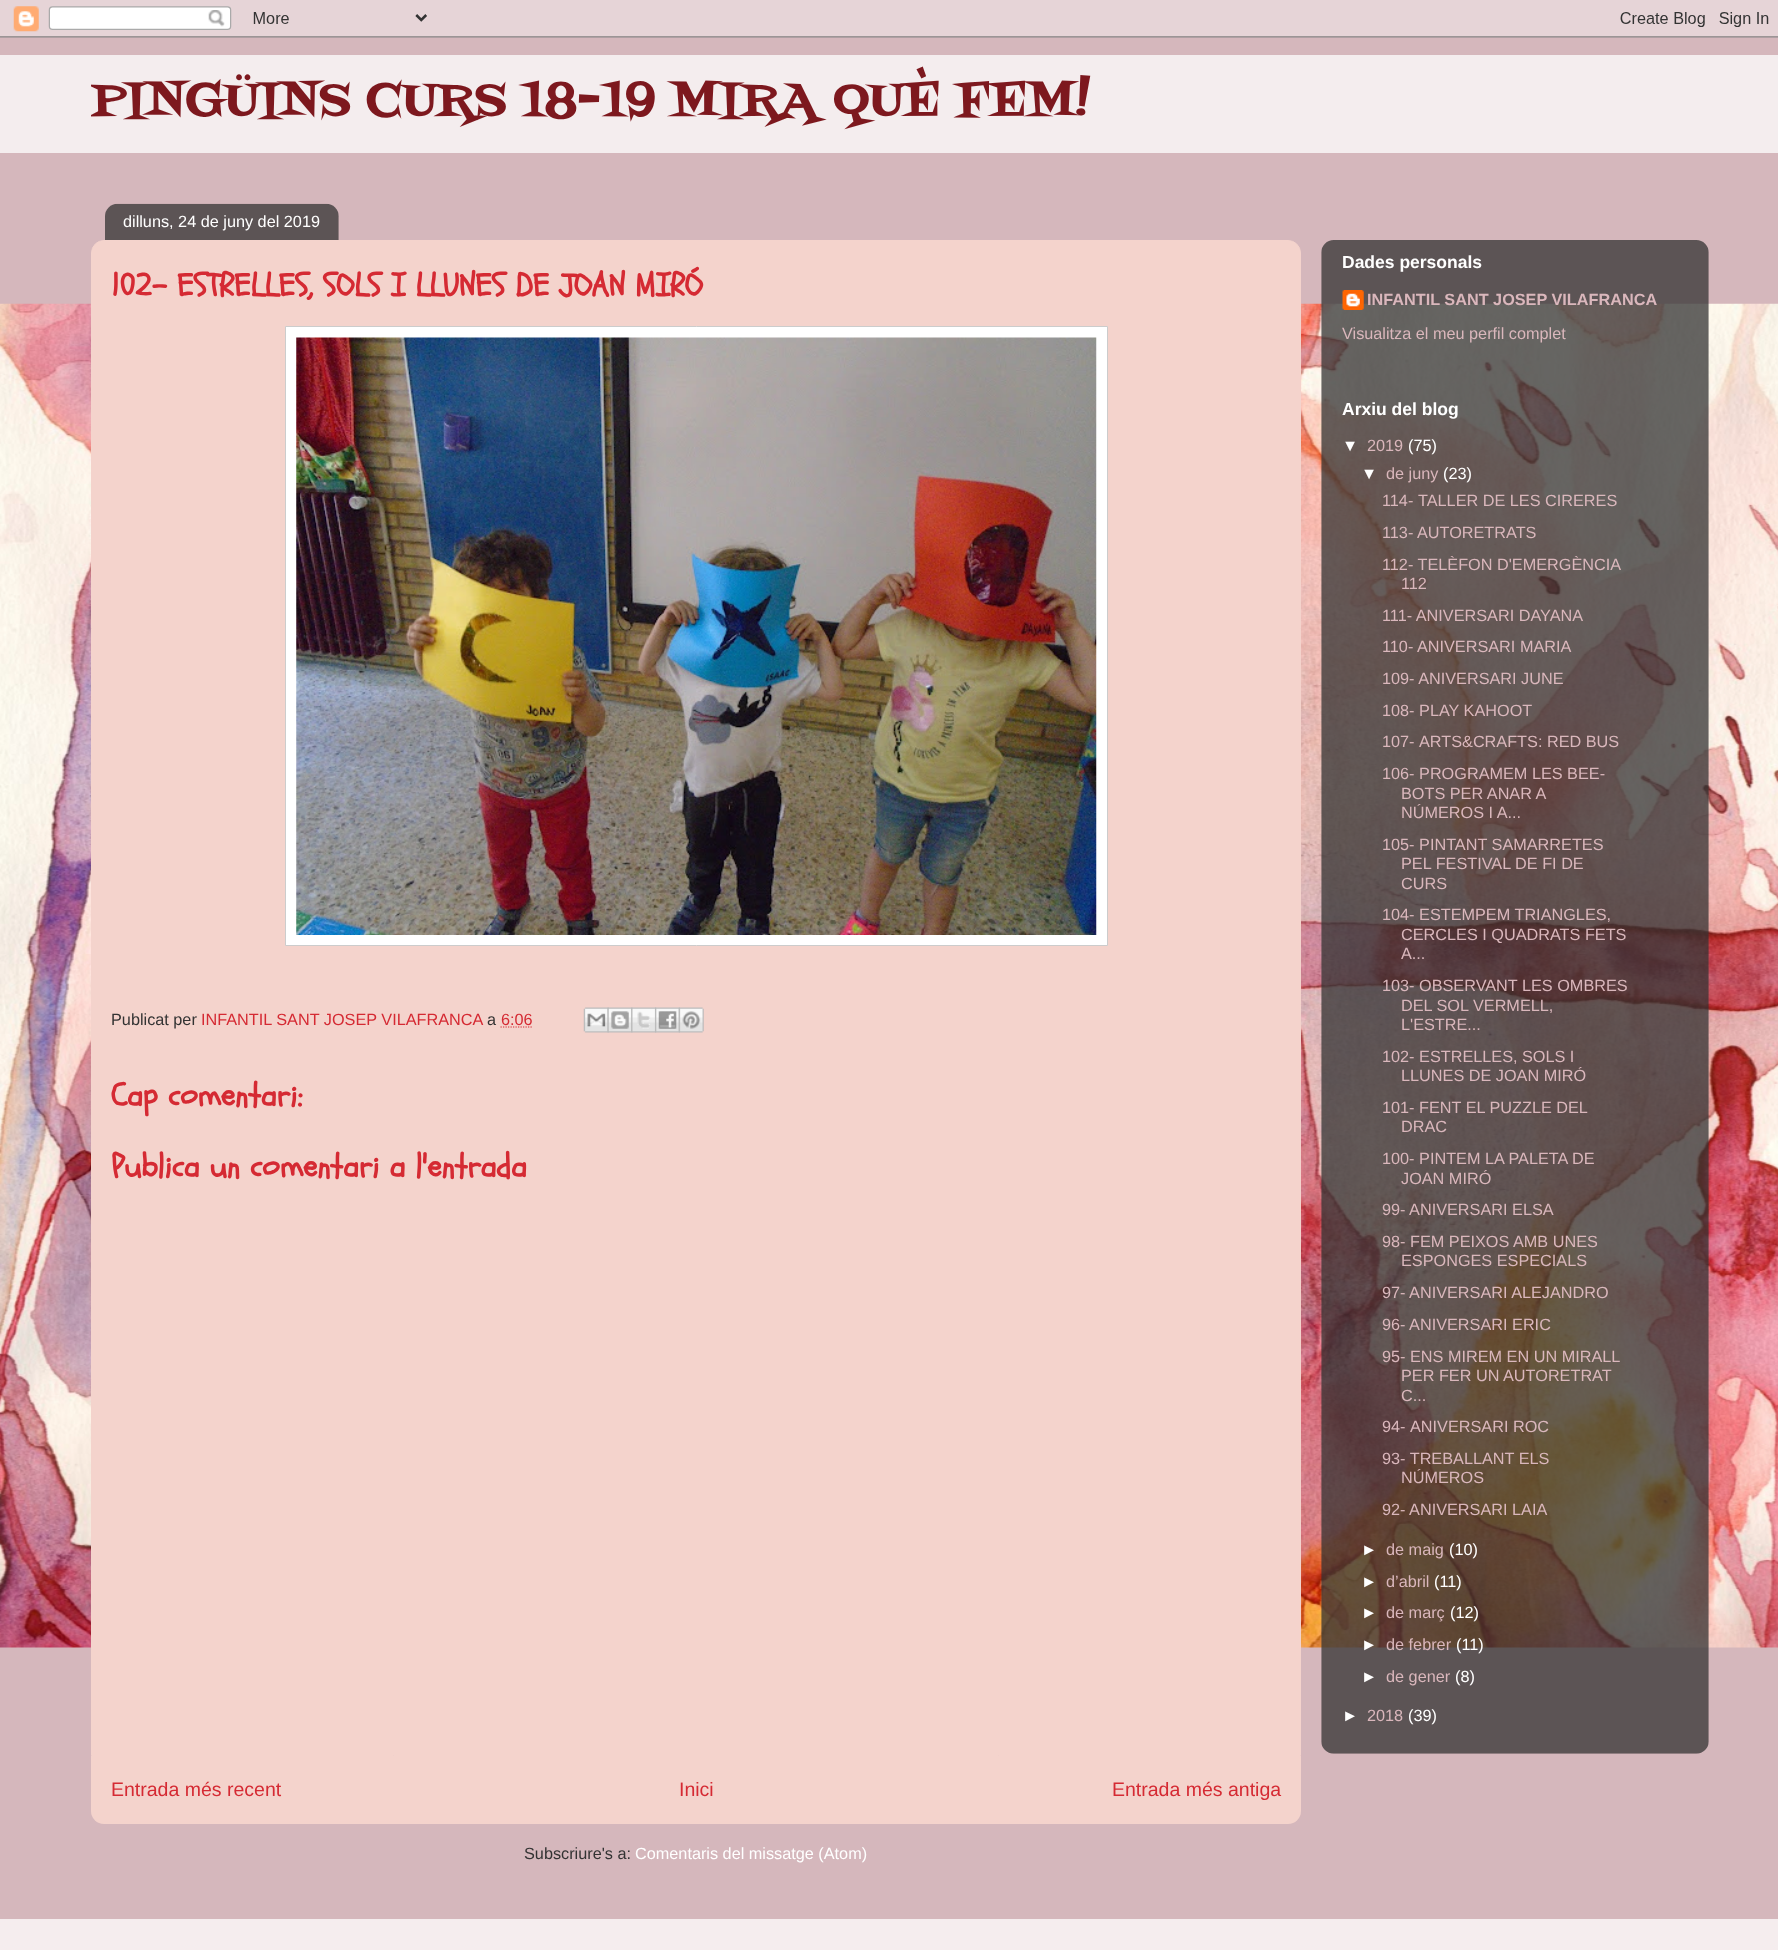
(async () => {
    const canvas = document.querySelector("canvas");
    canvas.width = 1778;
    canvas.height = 1950;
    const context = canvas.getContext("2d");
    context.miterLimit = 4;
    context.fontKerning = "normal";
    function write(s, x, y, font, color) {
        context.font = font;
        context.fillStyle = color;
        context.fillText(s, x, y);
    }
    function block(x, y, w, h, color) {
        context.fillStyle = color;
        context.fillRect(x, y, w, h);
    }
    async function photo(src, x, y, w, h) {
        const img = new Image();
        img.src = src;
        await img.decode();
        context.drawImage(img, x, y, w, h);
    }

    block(0, 0, 1778, 1950, "rgb(213, 183, 188)");
    await photo("media/1.png", 0, 303, 1778, 1345);
    await photo("media/2.png", 0, 0, 1778, 38);
    block(0, 55, 1778, 98, "rgb(244, 237, 238)");
    context.save();
    context.beginPath();
    context.rect(91, 55, 1598, 98);
    context.clip();
    write("PINGÜINS CURS 18-19 MIRA QUÈ FEM!", 91, 115, "47.5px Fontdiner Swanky", "rgb(125, 24, 30)");
    context.restore();
    context.fillStyle = "rgb(244, 211, 204)";
    context.beginPath();
    context.roundRect(91.5, 240.5, 1209, 1515, [12.5, 12.5, 0, 0]);
    context.fill();
    context.strokeStyle = "rgb(244, 211, 204)";
    context.stroke();
    await photo("media/3.png", 105, 203, 234, 37);
    write("dilluns, 24 de juny del 2019", 123, 227, "16.25px Liberation Sans", "rgb(255, 255, 255)");
    write("102- ESTRELLES, SOLS I LLUNES DE JOAN MIRÓ", 111, 296, "bold 32.5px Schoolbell", "rgb(213, 42, 51)");
    context.fillStyle = "rgb(255, 255, 255)";
    context.beginPath();
    context.rect(285.5, 326.5, 822, 619);
    context.fill();
    context.strokeStyle = "rgb(204, 204, 204)";
    context.stroke();
    await photo("media/4.png", 296, 337, 801, 598);
    write("Publicat per", 111, 1025, "16.25px Liberation Sans", "rgb(51, 51, 51)");
    write("INFANTIL SANT JOSEP VILAFRANCA", 201, 1025, "16.25px Liberation Sans", "rgb(213, 42, 51)");
    write("a", 487, 1025, "16.25px Liberation Sans", "rgb(51, 51, 51)");
    write("6:06", 501, 1025, "16.25px Liberation Sans", "rgb(213, 42, 51)");
    context.beginPath();
    context.moveTo(500.5, 1027);
    context.lineTo(532, 1027);
    context.strokeStyle = "rgb(213, 42, 51)";
    context.lineWidth = 1.2;
    context.setLineDash([1.25, 1.25]);
    context.stroke();
    await photo("media/5.png", 583, 1007, 26, 26);
    await photo("media/6.png", 607, 1007, 26, 26);
    await photo("media/7.png", 631, 1007, 26, 26);
    await photo("media/8.png", 655, 1007, 25, 26);
    await photo("media/9.png", 678, 1007, 26, 26);
    write("Cap comentari:", 111, 1106, "bold 32.5px Schoolbell", "rgb(213, 42, 51)");
    write("Publica un comentari a l'entrada", 111, 1177, "bold 32.5px Schoolbell", "rgb(213, 42, 51)");
    context.fillStyle = "rgb(244, 211, 204)";
    context.beginPath();
    context.roundRect(91, 1756, 1210, 68, [0, 0, 13, 13]);
    context.fill();
    write("Entrada més recent", 111, 1796, "19.5px Liberation Sans", "rgb(213, 42, 51)");
    write("Inici", 679, 1796, "19.5px Liberation Sans", "rgb(213, 42, 51)");
    write("Entrada més antiga", 1112, 1796, "19.5px Liberation Sans", "rgb(213, 42, 51)");
    write("Subscriure's a:", 524, 1859, "16.25px Liberation Sans", "rgb(51, 51, 51)");
    write("Comentaris del missatge (Atom)", 635, 1859, "16.25px Liberation Sans", "rgb(255, 255, 255)");
    await photo("media/10.png", 1321, 240, 388, 1514);
    write("Dades personals", 1342, 268, "bold 17.5px Liberation Sans", "rgb(255, 255, 255)");
    await photo("media/11.png", 1342, 290, 22, 20);
    write("INFANTIL SANT JOSEP VILAFRANCA", 1367, 305, "bold 16.25px Liberation Sans", "rgb(218, 183, 188)");
    write("Visualitza el meu perfil complet", 1342, 339, "16.25px Liberation Sans", "rgb(218, 183, 188)");
    write("Arxiu del blog", 1342, 415, "bold 17.5px Liberation Sans", "rgb(255, 255, 255)");
    write("▼", 1342, 451, "16.25px Liberation Sans", "rgb(255, 255, 255)");
    write("2019", 1367, 451, "16.25px Liberation Sans", "rgb(218, 183, 188)");
    write("(75)", 1408, 451, "16.25px Liberation Sans", "rgb(255, 255, 255)");
    write("▼", 1361, 479, "16.25px Liberation Sans", "rgb(255, 255, 255)");
    write("de juny", 1386, 479, "16.25px Liberation Sans", "rgb(218, 183, 188)");
    write("(23)", 1443, 479, "16.25px Liberation Sans", "rgb(255, 255, 255)");
    write("114-", 1382, 506, "16.25px Liberation Sans", "rgb(218, 183, 188)");
    write("TALLER DE LES CIRERES", 1418, 506, "16.25px Liberation Sans", "rgb(218, 183, 188)");
    write("113- AUTORETRATS", 1382, 538, "16.25px Liberation Sans", "rgb(218, 183, 188)");
    write("112- TELÈFON D'EMERGÈNCIA", 1382, 570, "16.25px Liberation Sans", "rgb(218, 183, 188)");
    write("112", 1401, 589, "16.25px Liberation Sans", "rgb(218, 183, 188)");
    write("111- ANIVERSARI DAYANA", 1382, 621, "16.25px Liberation Sans", "rgb(218, 183, 188)");
    write("110- ANIVERSARI MARIA", 1382, 652, "16.25px Liberation Sans", "rgb(218, 183, 188)");
    write("109- ANIVERSARI JUNE", 1382, 684, "16.25px Liberation Sans", "rgb(218, 183, 188)");
    write("108- PLAY KAHOOT", 1382, 716, "16.25px Liberation Sans", "rgb(218, 183, 188)");
    write("107-", 1382, 747, "16.25px Liberation Sans", "rgb(218, 183, 188)");
    write("ARTS&CRAFTS: RED BUS", 1419, 747, "16.25px Liberation Sans", "rgb(218, 183, 188)");
    write("106- PROGRAMEM LES BEE-", 1382, 779, "16.25px Liberation Sans", "rgb(218, 183, 188)");
    write("BOTS PER ANAR A", 1401, 799, "16.25px Liberation Sans", "rgb(218, 183, 188)");
    write("NÚMEROS I A...", 1401, 818, "16.25px Liberation Sans", "rgb(218, 183, 188)");
    write("105- PINTANT SAMARRETES", 1382, 850, "16.25px Liberation Sans", "rgb(218, 183, 188)");
    write("PEL FESTIVAL DE FI DE", 1401, 869, "16.25px Liberation Sans", "rgb(218, 183, 188)");
    write("CURS", 1401, 889, "16.25px Liberation Sans", "rgb(218, 183, 188)");
    write("104- ESTEMPEM TRIANGLES,", 1382, 920, "16.25px Liberation Sans", "rgb(218, 183, 188)");
    write("CERCLES I QUADRATS FETS", 1401, 940, "16.25px Liberation Sans", "rgb(218, 183, 188)");
    write("A...", 1401, 959, "16.25px Liberation Sans", "rgb(218, 183, 188)");
    write("103- OBSERVANT LES OMBRES", 1382, 991, "16.25px Liberation Sans", "rgb(218, 183, 188)");
    write("DEL SOL VERMELL,", 1401, 1011, "16.25px Liberation Sans", "rgb(218, 183, 188)");
    write("L'ESTRE...", 1401, 1030, "16.25px Liberation Sans", "rgb(218, 183, 188)");
    write("102- ESTRELLES, SOLS I", 1382, 1062, "16.25px Liberation Sans", "rgb(218, 183, 188)");
    write("LLUNES DE JOAN MIRÓ", 1401, 1081, "16.25px Liberation Sans", "rgb(218, 183, 188)");
    write("101- FENT EL PUZZLE DEL", 1382, 1113, "16.25px Liberation Sans", "rgb(218, 183, 188)");
    write("DRAC", 1401, 1132, "16.25px Liberation Sans", "rgb(218, 183, 188)");
    write("100- PINTEM LA PALETA DE", 1382, 1164, "16.25px Liberation Sans", "rgb(218, 183, 188)");
    write("JOAN MIRÓ", 1401, 1184, "16.25px Liberation Sans", "rgb(218, 183, 188)");
    write("99- ANIVERSARI ELSA", 1382, 1215, "16.25px Liberation Sans", "rgb(218, 183, 188)");
    write("98- FEM PEIXOS AMB UNES", 1382, 1247, "16.25px Liberation Sans", "rgb(218, 183, 188)");
    write("ESPONGES ESPECIALS", 1401, 1266, "16.25px Liberation Sans", "rgb(218, 183, 188)");
    write("97- ANIVERSARI ALEJANDRO", 1382, 1298, "16.25px Liberation Sans", "rgb(218, 183, 188)");
    write("96- ANIVERSARI ERIC", 1382, 1330, "16.25px Liberation Sans", "rgb(218, 183, 188)");
    write("95- ENS MIREM EN UN MIRALL", 1382, 1362, "16.25px Liberation Sans", "rgb(218, 183, 188)");
    write("PER FER UN AUTORETRAT", 1401, 1381, "16.25px Liberation Sans", "rgb(218, 183, 188)");
    write("C...", 1401, 1401, "16.25px Liberation Sans", "rgb(218, 183, 188)");
    write("94-", 1382, 1432, "16.25px Liberation Sans", "rgb(218, 183, 188)");
    write("ANIVERSARI ROC", 1410, 1432, "16.25px Liberation Sans", "rgb(218, 183, 188)");
    write("93- TREBALLANT ELS", 1382, 1464, "16.25px Liberation Sans", "rgb(218, 183, 188)");
    write("NÚMEROS", 1401, 1483, "16.25px Liberation Sans", "rgb(218, 183, 188)");
    write("92- ANIVERSARI LAIA", 1382, 1515, "16.25px Liberation Sans", "rgb(218, 183, 188)");
    write("►", 1361, 1555, "16.25px Liberation Sans", "rgb(255, 255, 255)");
    write("de maig", 1386, 1555, "16.25px Liberation Sans", "rgb(218, 183, 188)");
    write("(10)", 1449, 1555, "16.25px Liberation Sans", "rgb(255, 255, 255)");
    write("►", 1361, 1587, "16.25px Liberation Sans", "rgb(255, 255, 255)");
    write("d’abril", 1386, 1587, "16.25px Liberation Sans", "rgb(218, 183, 188)");
    write("(11)", 1434, 1587, "16.25px Liberation Sans", "rgb(255, 255, 255)");
    write("►", 1361, 1618, "16.25px Liberation Sans", "rgb(255, 255, 255)");
    write("de març", 1386, 1618, "16.25px Liberation Sans", "rgb(218, 183, 188)");
    write("(12)", 1450, 1618, "16.25px Liberation Sans", "rgb(255, 255, 255)");
    write("►", 1361, 1650, "16.25px Liberation Sans", "rgb(255, 255, 255)");
    write("de febrer", 1386, 1650, "16.25px Liberation Sans", "rgb(218, 183, 188)");
    write("(11)", 1456, 1650, "16.25px Liberation Sans", "rgb(255, 255, 255)");
    write("►", 1361, 1682, "16.25px Liberation Sans", "rgb(255, 255, 255)");
    write("de gener", 1386, 1682, "16.25px Liberation Sans", "rgb(218, 183, 188)");
    write("(8)", 1455, 1682, "16.25px Liberation Sans", "rgb(255, 255, 255)");
    write("►", 1342, 1721, "16.25px Liberation Sans", "rgb(255, 255, 255)");
    write("2018", 1367, 1721, "16.25px Liberation Sans", "rgb(218, 183, 188)");
    write("(39)", 1408, 1721, "16.25px Liberation Sans", "rgb(255, 255, 255)");
    block(0, 1919, 1778, 31, "rgb(245, 237, 238)");
})();
